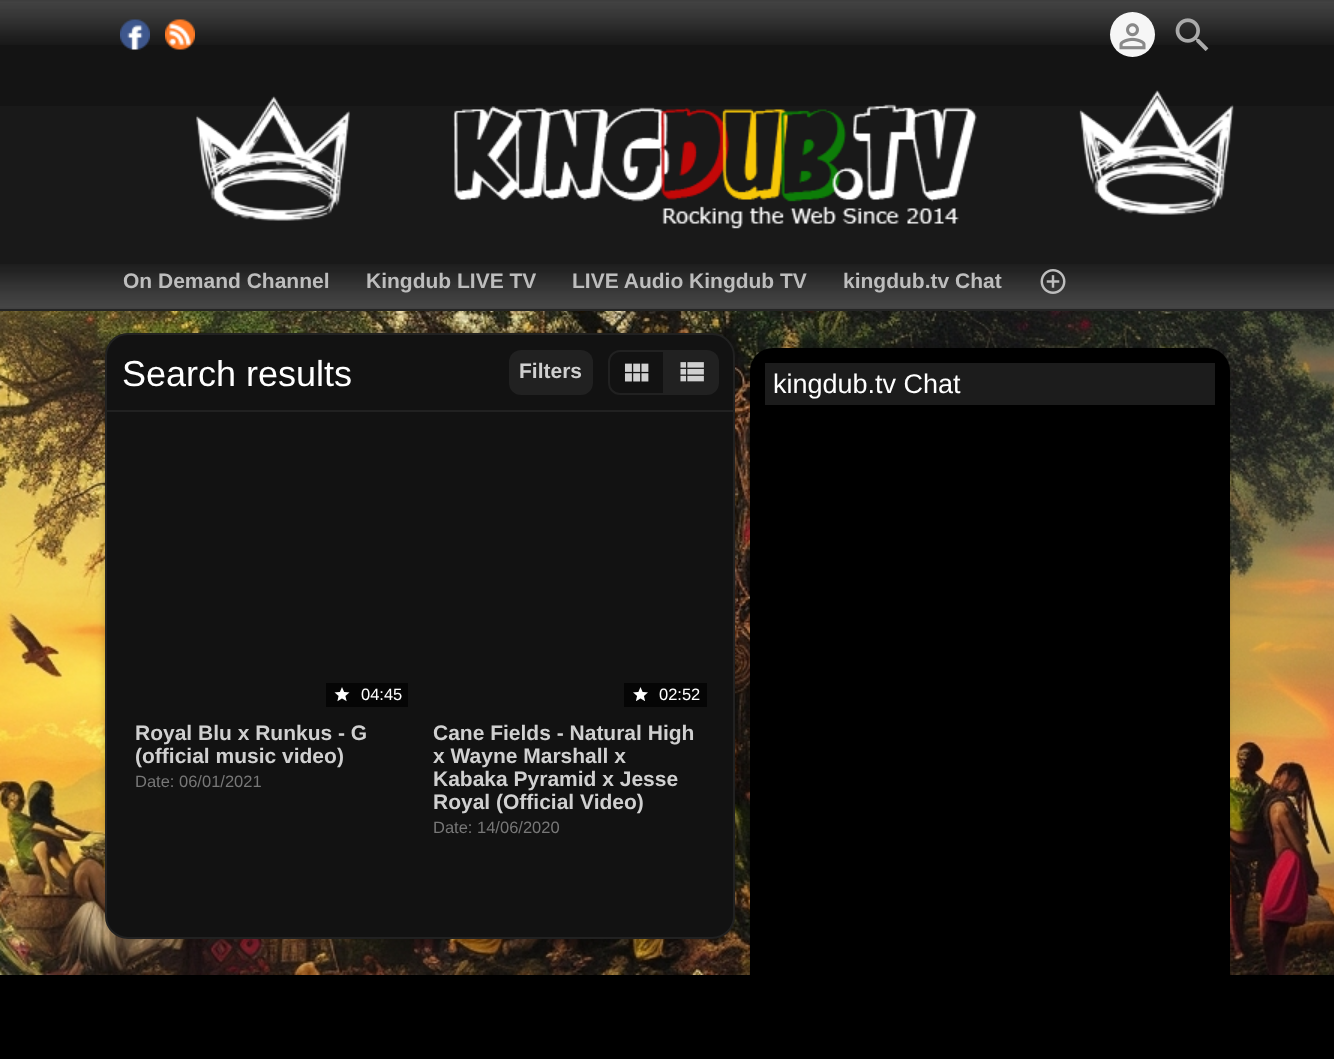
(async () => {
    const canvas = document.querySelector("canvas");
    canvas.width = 1334;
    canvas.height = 1059;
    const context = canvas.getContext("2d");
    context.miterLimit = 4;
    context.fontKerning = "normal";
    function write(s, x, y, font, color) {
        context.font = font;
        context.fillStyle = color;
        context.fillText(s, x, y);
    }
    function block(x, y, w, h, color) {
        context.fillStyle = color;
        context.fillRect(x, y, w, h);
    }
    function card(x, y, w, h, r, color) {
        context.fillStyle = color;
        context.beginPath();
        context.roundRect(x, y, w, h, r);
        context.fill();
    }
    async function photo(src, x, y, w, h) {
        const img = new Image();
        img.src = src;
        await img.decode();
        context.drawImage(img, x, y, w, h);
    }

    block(0, 0, 1334, 1059, "rgb(0, 0, 0)");
    await photo("media/1.png", 0, 311, 1334, 664);
    block(0, 0, 1334, 69, "rgb(20, 20, 20)");
    await photo("media/2.png", 0, 0, 1334, 45);
    await photo("media/3.png", 120, 19, 30, 31);
    await photo("media/4.png", 165, 19, 30, 31);
    context.fillStyle = "rgb(246, 246, 246)";
    context.beginPath();
    context.arc(1132.5, 34.5, 22.5, 0, Math.PI * 2);
    context.fill();
    await photo("media/5.png", 1119, 23, 27, 27);
    await photo("media/6.png", 1175, 18, 34, 33);
    block(0, 69, 1334, 240, "rgb(25, 25, 25)");
    await photo("media/7.png", 0, 69, 1334, 37);
    await photo("media/8.png", 196, 90, 1038, 139);
    await photo("media/9.png", 0, 264, 1334, 45);
    block(0, 309, 1334, 2, "rgb(36, 36, 36)");
    write("On Demand Channel", 123, 288, "bold 21px Liberation Sans", "rgb(189, 189, 189)");
    write("Kingdub LIVE TV", 366, 288, "bold 21px Liberation Sans", "rgb(189, 189, 189)");
    write("LIVE Audio Kingdub TV", 572, 288, "bold 21px Liberation Sans", "rgb(189, 189, 189)");
    write("kingdub.tv Chat", 843, 288, "bold 21px Liberation Sans", "rgb(189, 189, 189)");
    await photo("media/10.png", 1040, 269, 26, 25);
    context.fillStyle = "rgba(0, 0, 0, 0.2)";
    context.filter = "blur(4px)";
    context.beginPath();
    context.roundRect(105, 333, 630, 606, 23);
    context.fill();
    context.filter = "none";
    context.fillStyle = "rgb(18, 18, 18)";
    context.beginPath();
    context.roundRect(106, 334, 628, 604, 22);
    context.fill();
    context.strokeStyle = "rgb(33, 33, 33)";
    context.lineWidth = 2;
    context.stroke();
    write("Search results", 122, 386, "36px Liberation Sans", "rgb(255, 255, 255)");
    card(509, 350, 84, 45, 12, "rgb(33, 33, 33)");
    write("Filters", 519, 378, "bold 21px Liberation Sans", "rgb(208, 208, 208)");
    context.beginPath();
    context.roundRect(609, 351, 55, 43, [11, 0, 0, 11]);
    context.stroke();
    await photo("media/11.png", 624, 363, 25, 19);
    context.fillStyle = "rgb(33, 33, 33)";
    context.beginPath();
    context.roundRect(665, 350, 54, 45, [0, 12, 12, 0]);
    context.fill();
    await photo("media/12.png", 680, 362, 24, 20);
    block(107, 410, 627, 2, "rgb(33, 33, 33)");
    block(326, 683, 82, 24, "rgb(5, 5, 5)");
    await photo("media/13.png", 334, 687, 16, 15);
    write("04:45", 361, 700, "16.5px Liberation Sans", "rgb(255, 255, 255)");
    write("Royal Blu x Runkus - G", 135, 740, "bold 21px Liberation Sans", "rgb(208, 208, 208)");
    write("(official music video)", 135, 763, "bold 21px Liberation Sans", "rgb(208, 208, 208)");
    write("Date: 06/01/2021", 135, 787, "16.5px Liberation Sans", "rgb(119, 119, 119)");
    block(624, 683, 83, 24, "rgb(5, 5, 5)");
    await photo("media/14.png", 633, 687, 15, 14);
    write("02:52", 659, 700, "16.5px Liberation Sans", "rgb(255, 255, 255)");
    write("Cane Fields - Natural High", 433, 740, "bold 21px Liberation Sans", "rgb(208, 208, 208)");
    write("x Wayne Marshall x", 433, 763, "bold 21px Liberation Sans", "rgb(208, 208, 208)");
    write("Kabaka Pyramid x Jesse", 433, 786, "bold 21px Liberation Sans", "rgb(208, 208, 208)");
    write("Royal (Official Video)", 433, 809, "bold 21px Liberation Sans", "rgb(208, 208, 208)");
    write("Date: 14/06/2020", 433, 833, "16.5px Liberation Sans", "rgb(119, 119, 119)");
    context.fillStyle = "rgba(0, 0, 0, 0.1)";
    context.filter = "blur(2px)";
    context.beginPath();
    context.roundRect(750, 348, 480, 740, 23);
    context.fill();
    context.filter = "none";
    card(750, 348, 480, 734, 23, "rgb(0, 0, 0)");
    block(765, 363, 450, 42, "rgb(28, 28, 28)");
    write("kingdub.tv Chat", 773, 393, "27px Liberation Sans", "rgb(255, 255, 255)");
})();
